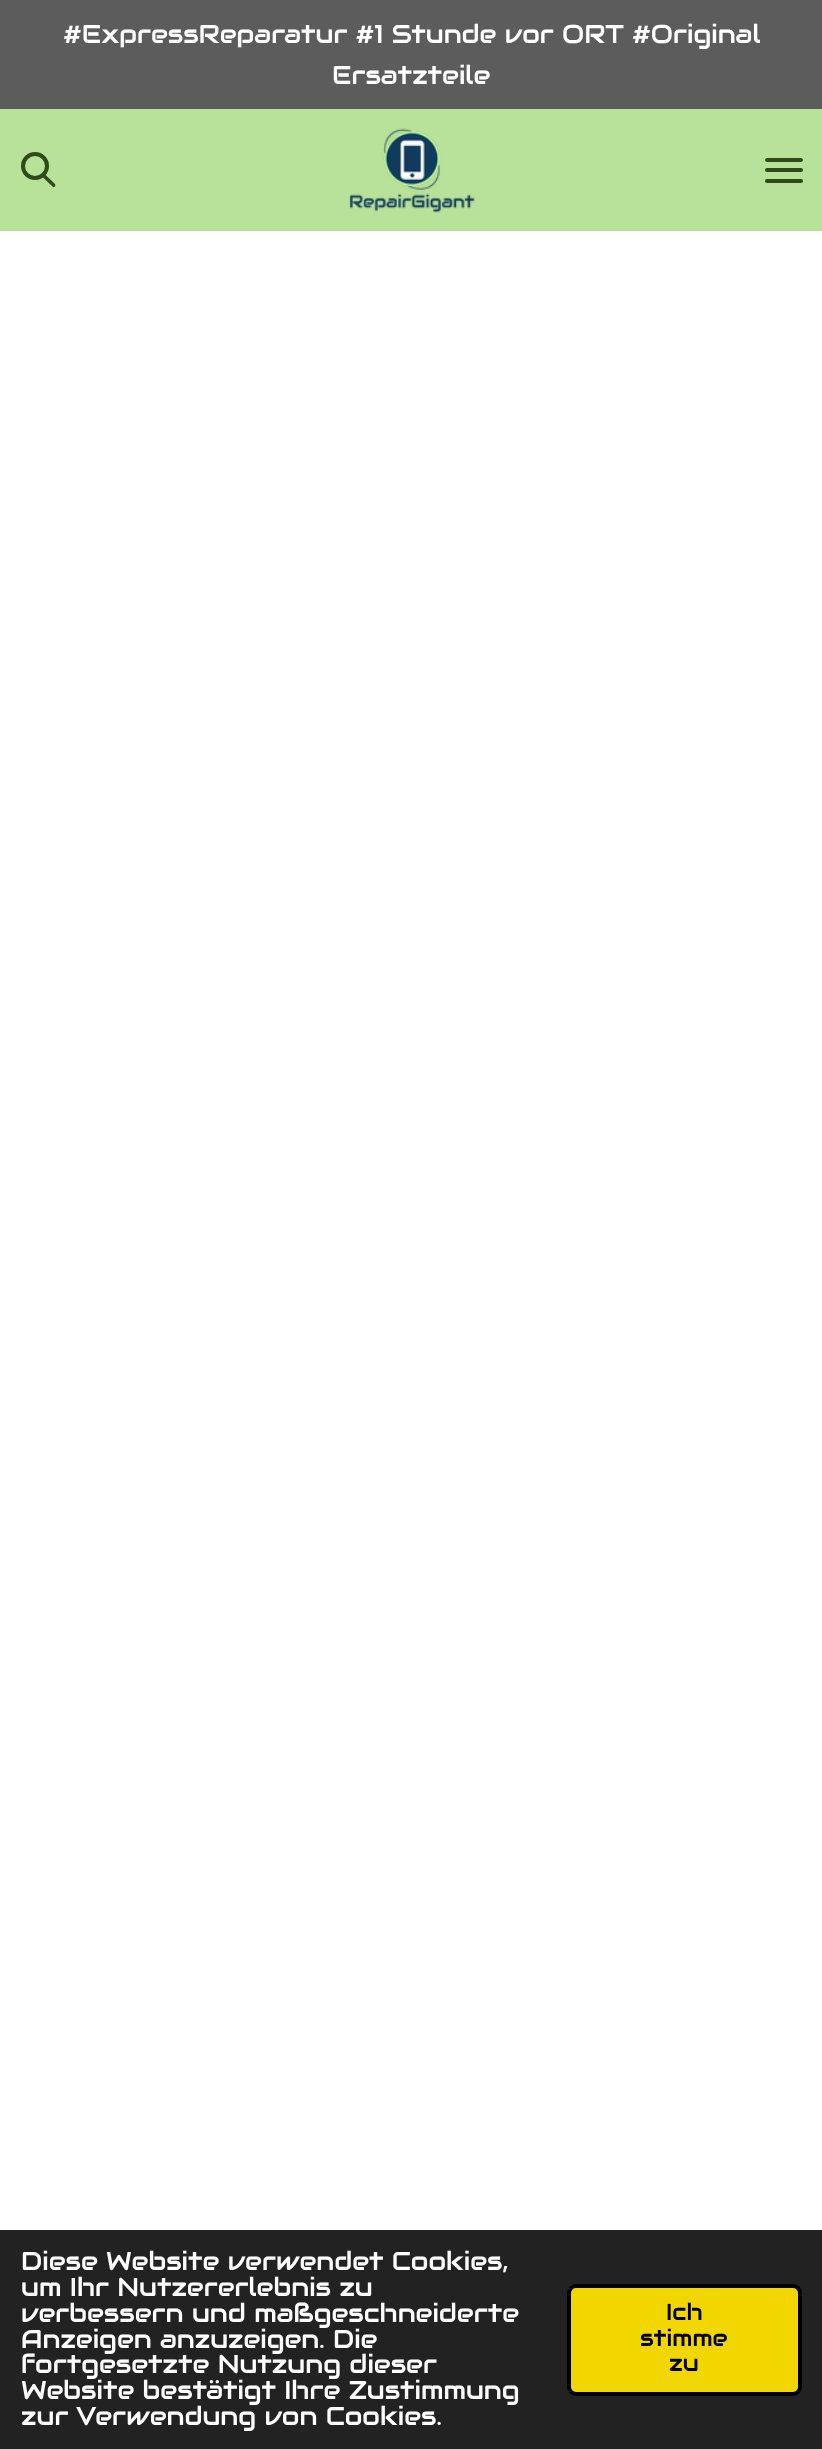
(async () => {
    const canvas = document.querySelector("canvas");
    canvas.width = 822;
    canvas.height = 2449;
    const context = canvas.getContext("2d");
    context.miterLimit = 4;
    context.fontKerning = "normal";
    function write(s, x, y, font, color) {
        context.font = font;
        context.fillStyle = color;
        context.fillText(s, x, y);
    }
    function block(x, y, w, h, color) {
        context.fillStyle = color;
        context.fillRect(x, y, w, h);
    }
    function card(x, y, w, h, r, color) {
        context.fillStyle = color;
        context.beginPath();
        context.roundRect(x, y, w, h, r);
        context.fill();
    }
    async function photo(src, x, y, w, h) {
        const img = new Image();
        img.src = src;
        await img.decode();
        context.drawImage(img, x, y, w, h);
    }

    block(0, 0, 822, 2449, "rgb(255, 255, 255)");
    block(0, 0, 822, 109, "rgb(92, 92, 92)");
    write("#ExpressReparatur #1 Stunde vor ORT #Original", 63, 43, "25.75px Audiowide", "rgb(255, 255, 255)");
    write("Ersatzteile", 332, 84, "25.75px Audiowide", "rgb(255, 255, 255)");
    block(0, 109, 77, 122, "rgb(184, 225, 154)");
    context.beginPath();
    context.arc(35, 166, 12, 0, Math.PI * 2);
    context.strokeStyle = "rgb(45, 76, 23)";
    context.lineWidth = 4;
    context.stroke();
    context.fillStyle = "rgb(45, 76, 23)";
    context.beginPath();
    context.moveTo(43.5, 173);
    context.lineTo(55, 184);
    context.bezierCurveTo(55.5, 185, 55.5, 186, 55, 186.5);
    context.bezierCurveTo(54, 187.5, 53, 187.5, 52.5, 186.5);
    context.lineTo(41, 175.5);
    context.closePath();
    context.fill();
    block(77, 109, 745, 122, "rgb(184, 225, 154)");
    card(765, 168, 38, 4, 2, "rgb(45, 76, 23)");
    card(765, 158, 38, 4, 2, "rgb(45, 76, 23)");
    card(765, 179, 38, 4, 2, "rgb(45, 76, 23)");
    await photo("media/1.png", 349, 128, 126, 85);
    block(0, 2230, 822, 219, "rgb(34, 34, 34)");
    write("Diese Website verwendet Cookies,", 21, 2270, "25.75px Audiowide", "rgb(255, 255, 255)");
    write("um Ihr Nutzererlebnis zu", 21, 2296, "25.75px Audiowide", "rgb(255, 255, 255)");
    write("verbessern und maßgeschneiderte", 21, 2322, "25.75px Audiowide", "rgb(255, 255, 255)");
    write("Anzeigen anzuzeigen. Die", 21, 2348, "25.75px Audiowide", "rgb(255, 255, 255)");
    write("fortgesetzte Nutzung dieser", 21, 2373, "25.75px Audiowide", "rgb(255, 255, 255)");
    write("Website bestätigt Ihre Zustimmung", 21, 2399, "25.75px Audiowide", "rgb(255, 255, 255)");
    write("zur Verwendung von Cookies.", 21, 2425, "25.75px Audiowide", "rgb(255, 255, 255)");
    context.fillStyle = "rgb(241, 214, 0)";
    context.beginPath();
    context.roundRect(569, 2286, 231, 108, 7);
    context.fill();
    context.strokeStyle = "rgb(0, 0, 0)";
    context.stroke();
    write("Ich", 666, 2320, "23px Audiowide", "rgb(0, 0, 0)");
    write("stimme", 640, 2346, "23px Audiowide", "rgb(0, 0, 0)");
    write("zu", 669, 2371, "23px Audiowide", "rgb(0, 0, 0)");
})();
